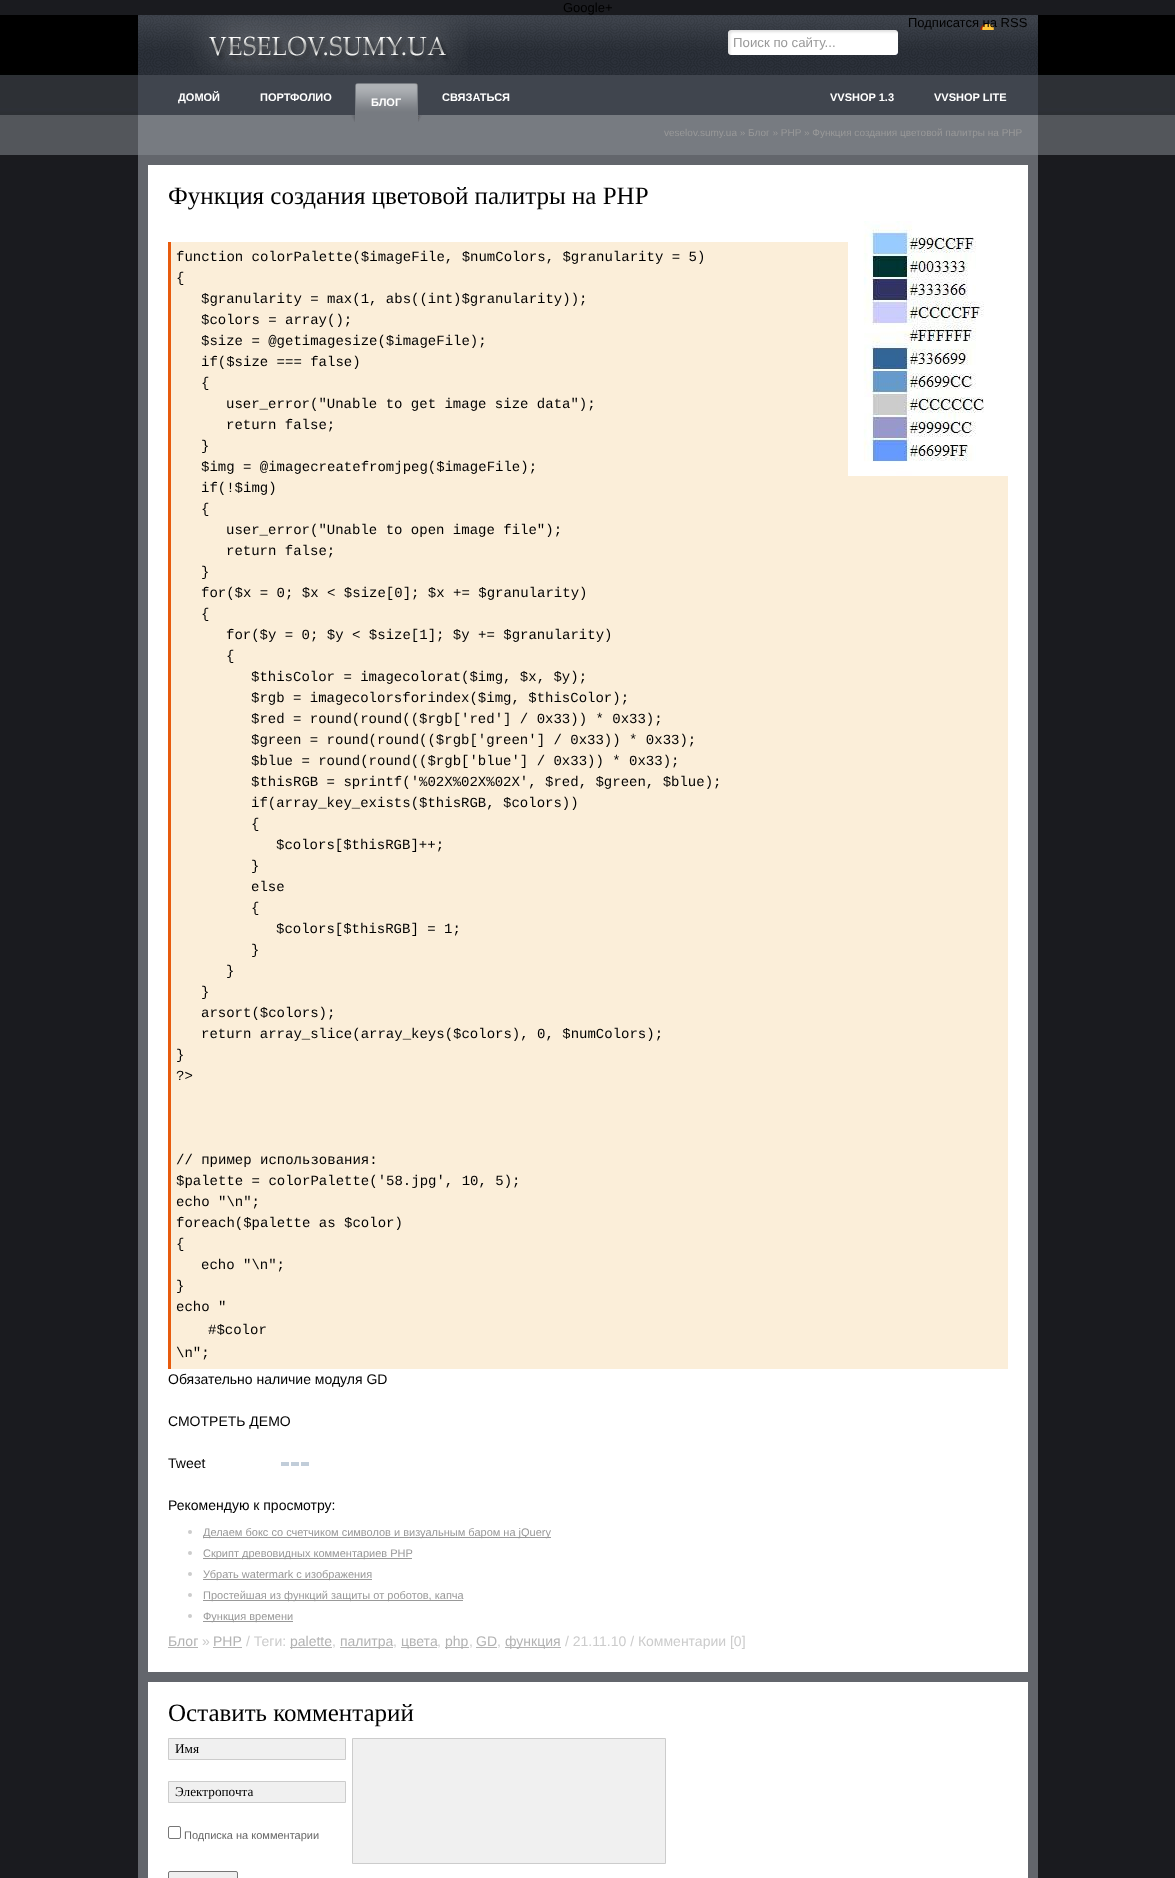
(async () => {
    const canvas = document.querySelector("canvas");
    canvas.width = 1175;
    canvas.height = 1878;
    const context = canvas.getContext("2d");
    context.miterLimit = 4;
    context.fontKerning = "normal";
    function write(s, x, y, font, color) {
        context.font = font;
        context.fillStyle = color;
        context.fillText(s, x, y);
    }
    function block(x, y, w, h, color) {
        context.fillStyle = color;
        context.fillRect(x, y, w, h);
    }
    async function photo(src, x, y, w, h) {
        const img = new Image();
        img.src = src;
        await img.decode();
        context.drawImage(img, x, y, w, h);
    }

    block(0, 0, 1175, 1878, "rgb(26, 27, 31)");
    write("Google+", 563, 12, "13px Liberation Sans", "rgb(0, 0, 0)");
    await photo("media/1.png", 0, 15, 1175, 140);
    await photo("media/2.png", 138, 15, 900, 140);
    await photo("media/3.png", 178, 15, 290, 60);
    await photo("media/4.png", 974, 15, 54, 15);
    write("Подписатся на RSS", 908, 27, "13px Liberation Sans", "rgb(0, 0, 0)");
    await photo("media/5.png", 728, 30, 170, 25);
    write("Поиск по сайту...", 733, 47, "13.25px Liberation Sans", "rgb(153, 153, 153)");
    write("ДОМОЙ", 178, 101, "bold 11px Liberation Sans", "rgb(255, 255, 255)");
    write("ПОРТФОЛИО", 260, 101, "bold 11px Liberation Sans", "rgb(255, 255, 255)");
    await photo("media/6.png", 358, 83, 64, 39);
    await photo("media/7.png", 351, 83, 7, 39);
    write("БЛОГ", 371, 106, "bold 11px Liberation Sans", "rgb(255, 255, 255)");
    write("СВЯЗАТЬСЯ", 442, 101, "bold 11px Liberation Sans", "rgb(255, 255, 255)");
    write("VVSHOP 1.3", 830, 101, "bold 11px Liberation Sans", "rgb(255, 255, 255)");
    write("VVSHOP LITE", 934, 101, "bold 11px Liberation Sans", "rgb(255, 255, 255)");
    write("veselov.sumy.ua » Блог » PHP » Функция создания цветовой палитры на PHP", 664, 136, "10px Liberation Sans", "rgb(153, 153, 153)");
    block(138, 155, 900, 1723, "rgb(99, 102, 108)");
    block(148, 165, 880, 1507, "rgb(255, 255, 255)");
    write("Функция создания цветовой палитры на PHP", 168, 204, "25px Liberation Serif", "rgb(0, 0, 0)");
    block(171, 242, 837, 1127, "rgb(251, 238, 217)");
    block(168, 242, 3, 1127, "rgb(231, 91, 13)");
    write("function colorPalette($imageFile, $numColors, $granularity = 5)", 176, 261, "14px Liberation Mono", "rgb(0, 0, 0)");
    write("{", 176, 282, "14px Liberation Mono", "rgb(0, 0, 0)");
    write("$granularity = max(1, abs((int)$granularity));", 201, 303, "14px Liberation Mono", "rgb(0, 0, 0)");
    write("$colors = array();", 201, 324, "14px Liberation Mono", "rgb(0, 0, 0)");
    write("$size = @getimagesize($imageFile);", 201, 345, "14px Liberation Mono", "rgb(0, 0, 0)");
    write("if($size === false)", 201, 366, "14px Liberation Mono", "rgb(0, 0, 0)");
    write("{", 201, 387, "14px Liberation Mono", "rgb(0, 0, 0)");
    write("user_error(\"Unable to get image size data\");", 226, 408, "14px Liberation Mono", "rgb(0, 0, 0)");
    write("return false;", 226, 429, "14px Liberation Mono", "rgb(0, 0, 0)");
    write("}", 201, 450, "14px Liberation Mono", "rgb(0, 0, 0)");
    write("$img = @imagecreatefromjpeg($imageFile);", 201, 471, "14px Liberation Mono", "rgb(0, 0, 0)");
    write("if(!$img)", 201, 492, "14px Liberation Mono", "rgb(0, 0, 0)");
    write("{", 201, 513, "14px Liberation Mono", "rgb(0, 0, 0)");
    write("user_error(\"Unable to open image file\");", 226, 534, "14px Liberation Mono", "rgb(0, 0, 0)");
    write("return false;", 226, 555, "14px Liberation Mono", "rgb(0, 0, 0)");
    write("}", 201, 576, "14px Liberation Mono", "rgb(0, 0, 0)");
    write("for($x = 0; $x < $size[0]; $x += $granularity)", 201, 597, "14px Liberation Mono", "rgb(0, 0, 0)");
    write("{", 201, 618, "14px Liberation Mono", "rgb(0, 0, 0)");
    write("for($y = 0; $y < $size[1]; $y += $granularity)", 226, 639, "14px Liberation Mono", "rgb(0, 0, 0)");
    write("{", 226, 660, "14px Liberation Mono", "rgb(0, 0, 0)");
    write("$thisColor = imagecolorat($img, $x, $y);", 251, 681, "14px Liberation Mono", "rgb(0, 0, 0)");
    write("$rgb = imagecolorsforindex($img, $thisColor);", 251, 702, "14px Liberation Mono", "rgb(0, 0, 0)");
    write("$red = round(round(($rgb['red'] / 0x33)) * 0x33);", 251, 723, "14px Liberation Mono", "rgb(0, 0, 0)");
    write("$green = round(round(($rgb['green'] / 0x33)) * 0x33);", 251, 744, "14px Liberation Mono", "rgb(0, 0, 0)");
    write("$blue = round(round(($rgb['blue'] / 0x33)) * 0x33);", 251, 765, "14px Liberation Mono", "rgb(0, 0, 0)");
    write("$thisRGB = sprintf('%02X%02X%02X', $red, $green, $blue);", 251, 786, "14px Liberation Mono", "rgb(0, 0, 0)");
    write("if(array_key_exists($thisRGB, $colors))", 251, 807, "14px Liberation Mono", "rgb(0, 0, 0)");
    write("{", 251, 828, "14px Liberation Mono", "rgb(0, 0, 0)");
    write("$colors[$thisRGB]++;", 276, 849, "14px Liberation Mono", "rgb(0, 0, 0)");
    write("}", 251, 870, "14px Liberation Mono", "rgb(0, 0, 0)");
    write("else", 251, 891, "14px Liberation Mono", "rgb(0, 0, 0)");
    write("{", 251, 912, "14px Liberation Mono", "rgb(0, 0, 0)");
    write("$colors[$thisRGB] = 1;", 276, 933, "14px Liberation Mono", "rgb(0, 0, 0)");
    write("}", 251, 954, "14px Liberation Mono", "rgb(0, 0, 0)");
    write("}", 226, 975, "14px Liberation Mono", "rgb(0, 0, 0)");
    write("}", 201, 996, "14px Liberation Mono", "rgb(0, 0, 0)");
    write("arsort($colors);", 201, 1017, "14px Liberation Mono", "rgb(0, 0, 0)");
    write("return array_slice(array_keys($colors), 0, $numColors);", 201, 1038, "14px Liberation Mono", "rgb(0, 0, 0)");
    write("}", 176, 1059, "14px Liberation Mono", "rgb(0, 0, 0)");
    write("?>", 176, 1080, "14px Liberation Mono", "rgb(0, 0, 0)");
    write("// пример использования:", 176, 1164, "14px Liberation Mono", "rgb(0, 0, 0)");
    write("$palette = colorPalette('58.jpg', 10, 5);", 176, 1185, "14px Liberation Mono", "rgb(0, 0, 0)");
    write("echo \"\\n\";", 176, 1206, "14px Liberation Mono", "rgb(0, 0, 0)");
    write("foreach($palette as $color)", 176, 1227, "14px Liberation Mono", "rgb(0, 0, 0)");
    write("{", 176, 1248, "14px Liberation Mono", "rgb(0, 0, 0)");
    write("echo \"\\n\";", 201, 1269, "14px Liberation Mono", "rgb(0, 0, 0)");
    write("}", 176, 1290, "14px Liberation Mono", "rgb(0, 0, 0)");
    write("echo \"", 176, 1311, "14px Liberation Mono", "rgb(0, 0, 0)");
    write("#$color", 208, 1334, "14px Liberation Mono", "rgb(0, 0, 0)");
    write("\\n\";", 176, 1357, "14px Liberation Mono", "rgb(0, 0, 0)");
    await photo("media/8.png", 848, 221, 160, 255);
    write("Обязательно наличие модуля GD", 168, 1384, "14px Liberation Sans", "rgb(0, 0, 0)");
    write("СМОТРЕТЬ ДЕМО", 168, 1426, "14px Liberation Sans", "rgb(0, 0, 0)");
    write("Tweet", 168, 1468, "14px Liberation Sans", "rgb(0, 0, 0)");
    await photo("media/9.png", 281, 1462, 28, 4);
    write("Рекомендую к просмотру:", 168, 1510, "14px Liberation Sans", "rgb(0, 0, 0)");
    context.fillStyle = "rgb(204, 204, 204)";
    context.beginPath();
    context.arc(190, 1532, 2, 0, Math.PI * 2);
    context.fill();
    block(203, 1537, 348, 1, "rgb(153, 153, 153)");
    write("Делаем бокс со счетчиком символов и визуальным баром на jQuery", 203, 1536, "11px Liberation Sans", "rgb(153, 153, 153)");
    context.fillStyle = "rgb(204, 204, 204)";
    context.beginPath();
    context.arc(190, 1553, 2, 0, Math.PI * 2);
    context.fill();
    block(203, 1558, 209, 1, "rgb(153, 153, 153)");
    write("Скрипт древовидных комментариев PHP", 203, 1557, "11px Liberation Sans", "rgb(153, 153, 153)");
    context.fillStyle = "rgb(204, 204, 204)";
    context.beginPath();
    context.arc(190, 1574, 2, 0, Math.PI * 2);
    context.fill();
    block(203, 1579, 169, 1, "rgb(153, 153, 153)");
    write("Убрать watermark с изображения", 203, 1578, "11px Liberation Sans", "rgb(153, 153, 153)");
    context.fillStyle = "rgb(204, 204, 204)";
    context.beginPath();
    context.arc(190, 1595, 2, 0, Math.PI * 2);
    context.fill();
    block(203, 1600, 260, 1, "rgb(153, 153, 153)");
    write("Простейшая из функций защиты от роботов, капча", 203, 1599, "11px Liberation Sans", "rgb(153, 153, 153)");
    context.fillStyle = "rgb(204, 204, 204)";
    context.beginPath();
    context.arc(190, 1616, 2, 0, Math.PI * 2);
    context.fill();
    block(203, 1621, 90, 1, "rgb(153, 153, 153)");
    write("Функция времени", 203, 1620, "11px Liberation Sans", "rgb(153, 153, 153)");
    write("Блог", 168, 1646, "14px Liberation Sans", "rgb(179, 179, 179)");
    block(168, 1647, 30, 1, "rgb(179, 179, 179)");
    write("»", 202, 1646, "14px Liberation Sans", "rgb(204, 204, 204)");
    write("PHP", 213, 1646, "14px Liberation Sans", "rgb(179, 179, 179)");
    block(213, 1647, 29, 1, "rgb(179, 179, 179)");
    write("/ Теги:", 246, 1646, "14px Liberation Sans", "rgb(204, 204, 204)");
    block(290, 1647, 42, 1, "rgb(179, 179, 179)");
    write("palette", 290, 1646, "14px Liberation Sans", "rgb(179, 179, 179)");
    write(",", 332, 1646, "14px Liberation Sans", "rgb(204, 204, 204)");
    block(340, 1647, 53, 1, "rgb(179, 179, 179)");
    write("палитра", 340, 1646, "14px Liberation Sans", "rgb(179, 179, 179)");
    write(",", 393, 1646, "14px Liberation Sans", "rgb(204, 204, 204)");
    block(401, 1647, 36, 1, "rgb(179, 179, 179)");
    write("цвета", 401, 1646, "14px Liberation Sans", "rgb(179, 179, 179)");
    write(",", 437, 1646, "14px Liberation Sans", "rgb(204, 204, 204)");
    block(445, 1647, 24, 1, "rgb(179, 179, 179)");
    write("php", 445, 1646, "14px Liberation Sans", "rgb(179, 179, 179)");
    write(",", 469, 1646, "14px Liberation Sans", "rgb(204, 204, 204)");
    write("GD", 476, 1646, "14px Liberation Sans", "rgb(179, 179, 179)");
    block(476, 1647, 21, 1, "rgb(179, 179, 179)");
    write(",", 497, 1646, "14px Liberation Sans", "rgb(204, 204, 204)");
    block(505, 1647, 56, 1, "rgb(179, 179, 179)");
    write("функция", 505, 1646, "14px Liberation Sans", "rgb(179, 179, 179)");
    write("/ 21.11.10 / Комментарии [0]", 565, 1646, "14px Liberation Sans", "rgb(204, 204, 204)");
    block(148, 1682, 880, 196, "rgb(255, 255, 255)");
    write("Оставить комментарий", 168, 1721, "25px Liberation Serif", "rgb(0, 0, 0)");
    context.fillStyle = "rgb(240, 240, 240)";
    context.beginPath();
    context.rect(168.5, 1738.5, 177, 21);
    context.fill();
    context.strokeStyle = "rgb(204, 204, 204)";
    context.stroke();
    write("Имя", 175, 1753, "13.25px Liberation Serif", "rgb(0, 0, 0)");
    context.fillStyle = "rgb(240, 240, 240)";
    context.beginPath();
    context.rect(168.5, 1781.5, 177, 21);
    context.fill();
    context.stroke();
    write("Электропочта", 175, 1796, "13.25px Liberation Serif", "rgb(0, 0, 0)");
    context.beginPath();
    context.roundRect(168.5, 1826.5, 12, 12, 1.5);
    context.strokeStyle = "rgb(118, 118, 118)";
    context.stroke();
    write("Подписка на комментарии", 184, 1839, "11px Liberation Sans", "rgb(102, 102, 102)");
    context.fillStyle = "rgb(240, 240, 240)";
    context.beginPath();
    context.rect(352.5, 1738.5, 313, 125);
    context.fill();
    context.strokeStyle = "rgb(204, 204, 204)";
    context.stroke();
    context.fillStyle = "rgb(239, 239, 239)";
    context.beginPath();
    context.roundRect(168.5, 1871.5, 69, 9, 1.5);
    context.fill();
    context.strokeStyle = "rgb(118, 118, 118)";
    context.stroke();
})();
